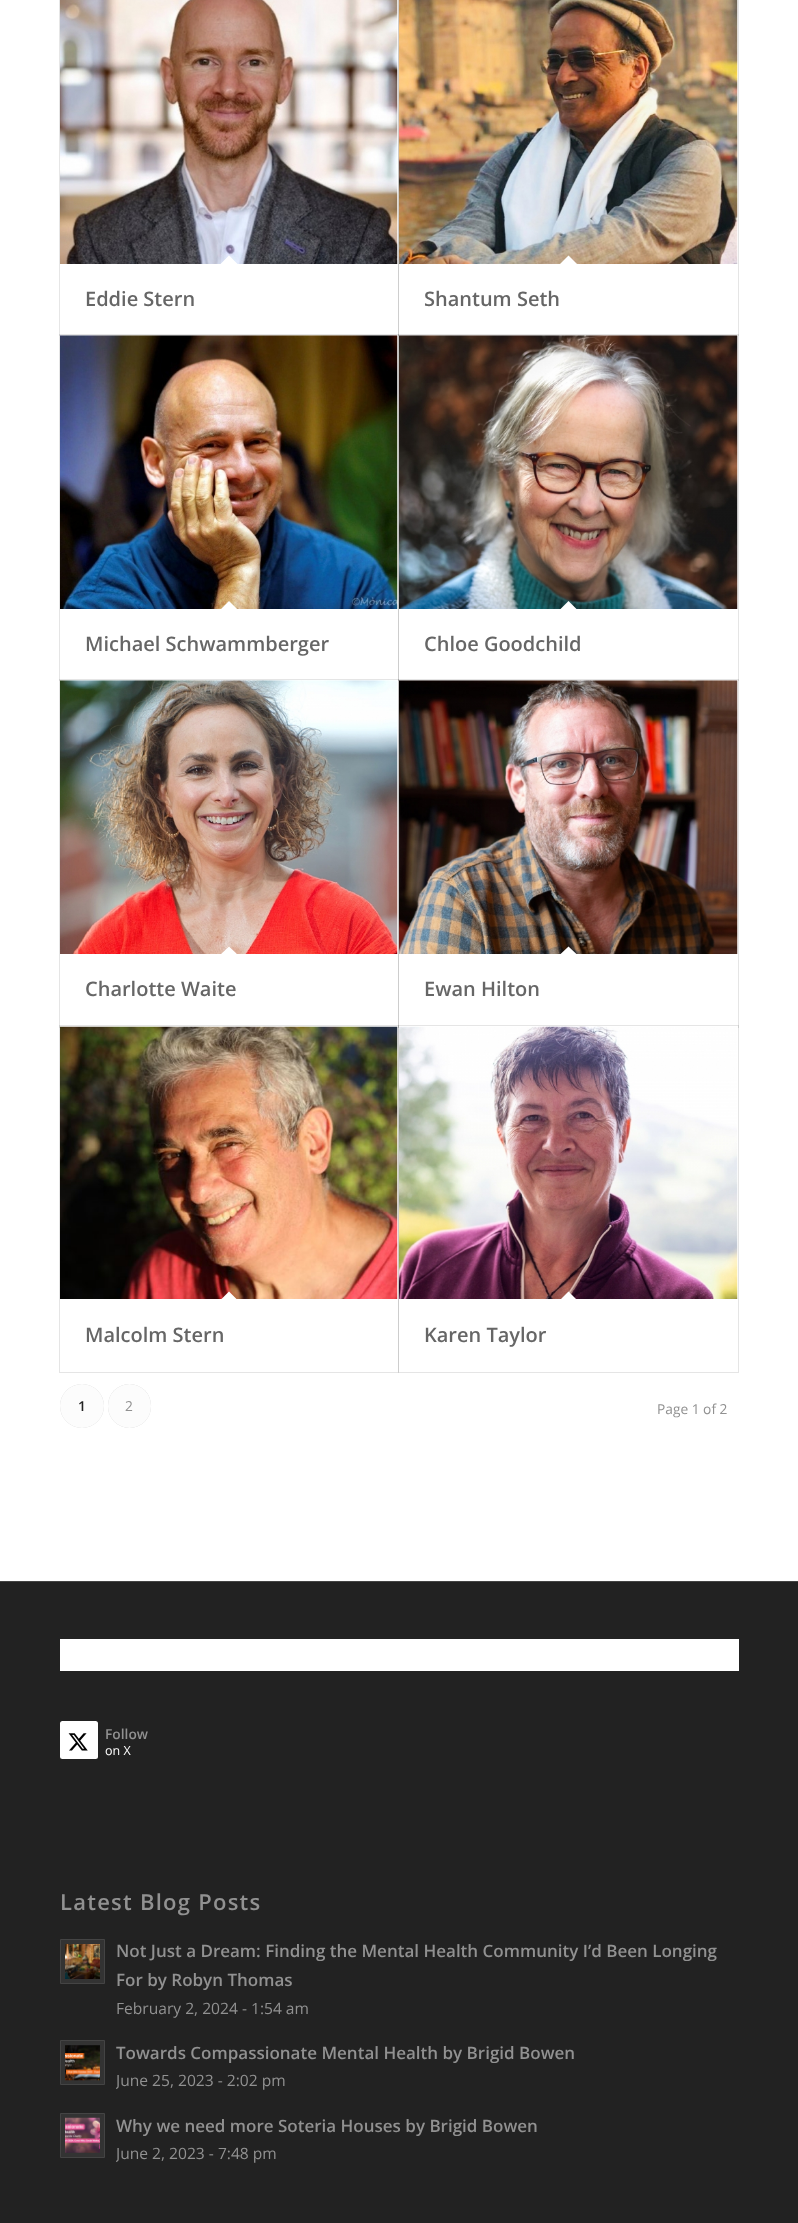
(async () => {
    const canvas = document.querySelector("canvas");
    canvas.width = 798;
    canvas.height = 2223;
    const context = canvas.getContext("2d");
    context.miterLimit = 4;
    context.fontKerning = "normal";
    function write(s, x, y, font, color) {
        context.font = font;
        context.fillStyle = color;
        context.fillText(s, x, y);
    }
    function block(x, y, w, h, color) {
        context.fillStyle = color;
        context.fillRect(x, y, w, h);
    }
    function card(x, y, w, h, r, color) {
        context.fillStyle = color;
        context.beginPath();
        context.roundRect(x, y, w, h, r);
        context.fill();
    }
    async function photo(src, x, y, w, h) {
        const img = new Image();
        img.src = src;
        await img.decode();
        context.drawImage(img, x, y, w, h);
    }

    block(0, 0, 798, 2223, "rgb(255, 255, 255)");
    context.strokeStyle = "rgb(230, 230, 230)";
    context.strokeRect(59.5, -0.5, 339, 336);
    await photo("media/1.png", 60, 0, 338, 264);
    context.beginPath();
    context.moveTo(229, 255.5);
    context.lineTo(238, 264.5);
    context.lineTo(229, 273.5);
    context.lineTo(220, 264.5);
    context.closePath();
    context.fill();
    write("Eddie Stern", 85, 306, "600 20px Open Sans", "rgb(102, 102, 102)");
    context.strokeStyle = "rgba(0, 0, 0, 0.1)";
    context.strokeRect(398.5, -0.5, 340, 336);
    await photo("media/2.png", 398, 0, 340, 264);
    context.fillStyle = "rgb(255, 255, 255)";
    context.beginPath();
    context.moveTo(568.5, 255.5);
    context.lineTo(577.5, 264.5);
    context.lineTo(568.5, 273.5);
    context.lineTo(559.5, 264.5);
    context.closePath();
    context.fill();
    write("Shantum Seth", 424, 306, "600 20px Open Sans", "rgb(102, 102, 102)");
    context.strokeRect(59.5, 334.5, 339, 346);
    block(60, 335, 338, 1, "rgb(255, 255, 255)");
    await photo("media/3.png", 60, 335, 338, 274);
    context.beginPath();
    context.moveTo(229, 601);
    context.lineTo(238, 610);
    context.lineTo(229, 618.5);
    context.lineTo(220, 610);
    context.closePath();
    context.fill();
    write("Michael Schwammberger", 85, 651, "600 20px Open Sans", "rgb(102, 102, 102)");
    context.strokeRect(398.5, 334.5, 340, 346);
    block(399, 335, 339, 1, "rgb(255, 255, 255)");
    await photo("media/4.png", 398, 335, 340, 274);
    context.beginPath();
    context.moveTo(568.5, 601);
    context.lineTo(577.5, 610);
    context.lineTo(568.5, 618.5);
    context.lineTo(559.5, 610);
    context.closePath();
    context.fill();
    write("Chloe Goodchild", 424, 651, "600 20px Open Sans", "rgb(102, 102, 102)");
    context.strokeRect(59.5, 679.5, 339, 348);
    block(60, 680, 338, 1, "rgb(255, 255, 255)");
    await photo("media/5.png", 60, 680, 338, 274);
    context.beginPath();
    context.moveTo(229, 946.5);
    context.lineTo(238, 955);
    context.lineTo(229, 964);
    context.lineTo(220, 955);
    context.closePath();
    context.fill();
    write("Charlotte Waite", 85, 996, "600 20px Open Sans", "rgb(102, 102, 102)");
    context.strokeRect(398.5, 679.5, 340, 348);
    block(399, 680, 339, 1, "rgb(255, 255, 255)");
    await photo("media/6.png", 398, 680, 340, 274);
    context.beginPath();
    context.moveTo(568.5, 946.5);
    context.lineTo(577.5, 955);
    context.lineTo(568.5, 964);
    context.lineTo(559.5, 955);
    context.closePath();
    context.fill();
    write("Ewan Hilton", 424, 996, "600 20px Open Sans", "rgb(102, 102, 102)");
    context.strokeRect(59.5, 1025.5, 339, 347);
    block(60, 1027, 338, 1, "rgb(255, 255, 255)");
    await photo("media/7.png", 60, 1026, 338, 273);
    context.beginPath();
    context.moveTo(229, 1291.5);
    context.lineTo(238, 1300.5);
    context.lineTo(229, 1309);
    context.lineTo(220, 1300.5);
    context.closePath();
    context.fill();
    write("Malcolm Stern", 85, 1342, "600 20px Open Sans", "rgb(102, 102, 102)");
    context.strokeRect(398.5, 1025.5, 340, 347);
    block(399, 1027, 339, 1, "rgb(255, 255, 255)");
    await photo("media/8.png", 398, 1026, 340, 273);
    context.beginPath();
    context.moveTo(568.5, 1291.5);
    context.lineTo(577.5, 1300.5);
    context.lineTo(568.5, 1309);
    context.lineTo(559.5, 1300.5);
    context.closePath();
    context.fill();
    write("Karen Taylor", 424, 1342, "600 20px Open Sans", "rgb(102, 102, 102)");
    context.fillStyle = "rgba(0, 0, 0, 0.2)";
    context.filter = "blur(0.5px)";
    context.beginPath();
    context.roundRect(60, 1384, 44, 44, 22);
    context.fill();
    context.filter = "none";
    context.fillStyle = "rgb(252, 252, 252)";
    context.beginPath();
    context.arc(82, 1406, 22, 0, Math.PI * 2);
    context.fill();
    write("1", 78, 1411, "600 13.75px Open Sans", "rgb(34, 34, 34)");
    context.fillStyle = "rgba(0, 0, 0, 0.2)";
    context.filter = "blur(0.5px)";
    context.beginPath();
    context.roundRect(108, 1384, 43, 44, 21.5);
    context.fill();
    context.filter = "none";
    card(108, 1384, 43, 44, 21.5, "rgb(252, 252, 252)");
    write("2", 125, 1411, "13.75px Open Sans", "rgb(145, 145, 145)");
    write("Page 1 of 2", 657, 1414, "13.75px Open Sans", "rgb(145, 145, 145)");
    block(0, 1582, 798, 641, "rgb(34, 34, 34)");
    block(0, 1581, 798, 1, "rgb(68, 68, 68)");
    block(60, 1639, 679, 32, "rgb(255, 255, 255)");
    card(60, 1721, 38, 38, 2.5, "rgb(255, 255, 255)");
    await photo("media/9.png", 68, 1733, 20, 18);
    write("Follow", 105, 1739, "600 13.75px Open Sans", "rgb(145, 145, 145)");
    write("on X", 105, 1755, "12.5px Open Sans", "rgb(255, 255, 255)");
    context.letterSpacing = "1.25px";
    write("Latest Blog Posts", 60, 1910, "600 22px Open Sans", "rgb(145, 145, 145)");
    context.fillStyle = "rgb(51, 51, 51)";
    context.beginPath();
    context.rect(60.5, 1939.5, 44, 44);
    context.fill();
    context.strokeStyle = "rgb(68, 68, 68)";
    context.stroke();
    await photo("media/10.png", 65, 1944, 35, 35);
    context.letterSpacing = "0px";
    write("Not Just a Dream: Finding the Mental Health Community I’d Been Longing", 116, 1957, "600 17px Open Sans", "rgb(145, 145, 145)");
    write("For by Robyn Thomas", 116, 1986, "600 17px Open Sans", "rgb(145, 145, 145)");
    write("February 2, 2024 - 1:54 am", 116, 2014, "15.6px Open Sans", "rgb(145, 145, 145)");
    context.fillStyle = "rgb(51, 51, 51)";
    context.beginPath();
    context.rect(60.5, 2040.5, 44, 44);
    context.fill();
    context.stroke();
    await photo("media/11.png", 65, 2045, 35, 36);
    write("Towards Compassionate Mental Health by Brigid Bowen", 116, 2059, "600 17px Open Sans", "rgb(145, 145, 145)");
    context.save();
    context.beginPath();
    context.rect(116, 2038, 623, 57);
    context.clip();
    write("June 25, 2023 - 2:02 pm", 116, 2086, "15.6px Open Sans", "rgb(145, 145, 145)");
    context.restore();
    context.fillStyle = "rgb(51, 51, 51)";
    context.beginPath();
    context.rect(60.5, 2113.5, 44, 44);
    context.fill();
    context.stroke();
    await photo("media/12.png", 65, 2117, 35, 36);
    write("Why we need more Soteria Houses by Brigid Bowen", 116, 2132, "600 17px Open Sans", "rgb(145, 145, 145)");
    context.save();
    context.beginPath();
    context.rect(116, 2110, 623, 58);
    context.clip();
    write("June 2, 2023 - 7:48 pm", 116, 2159, "15.6px Open Sans", "rgb(145, 145, 145)");
    context.restore();
})();
